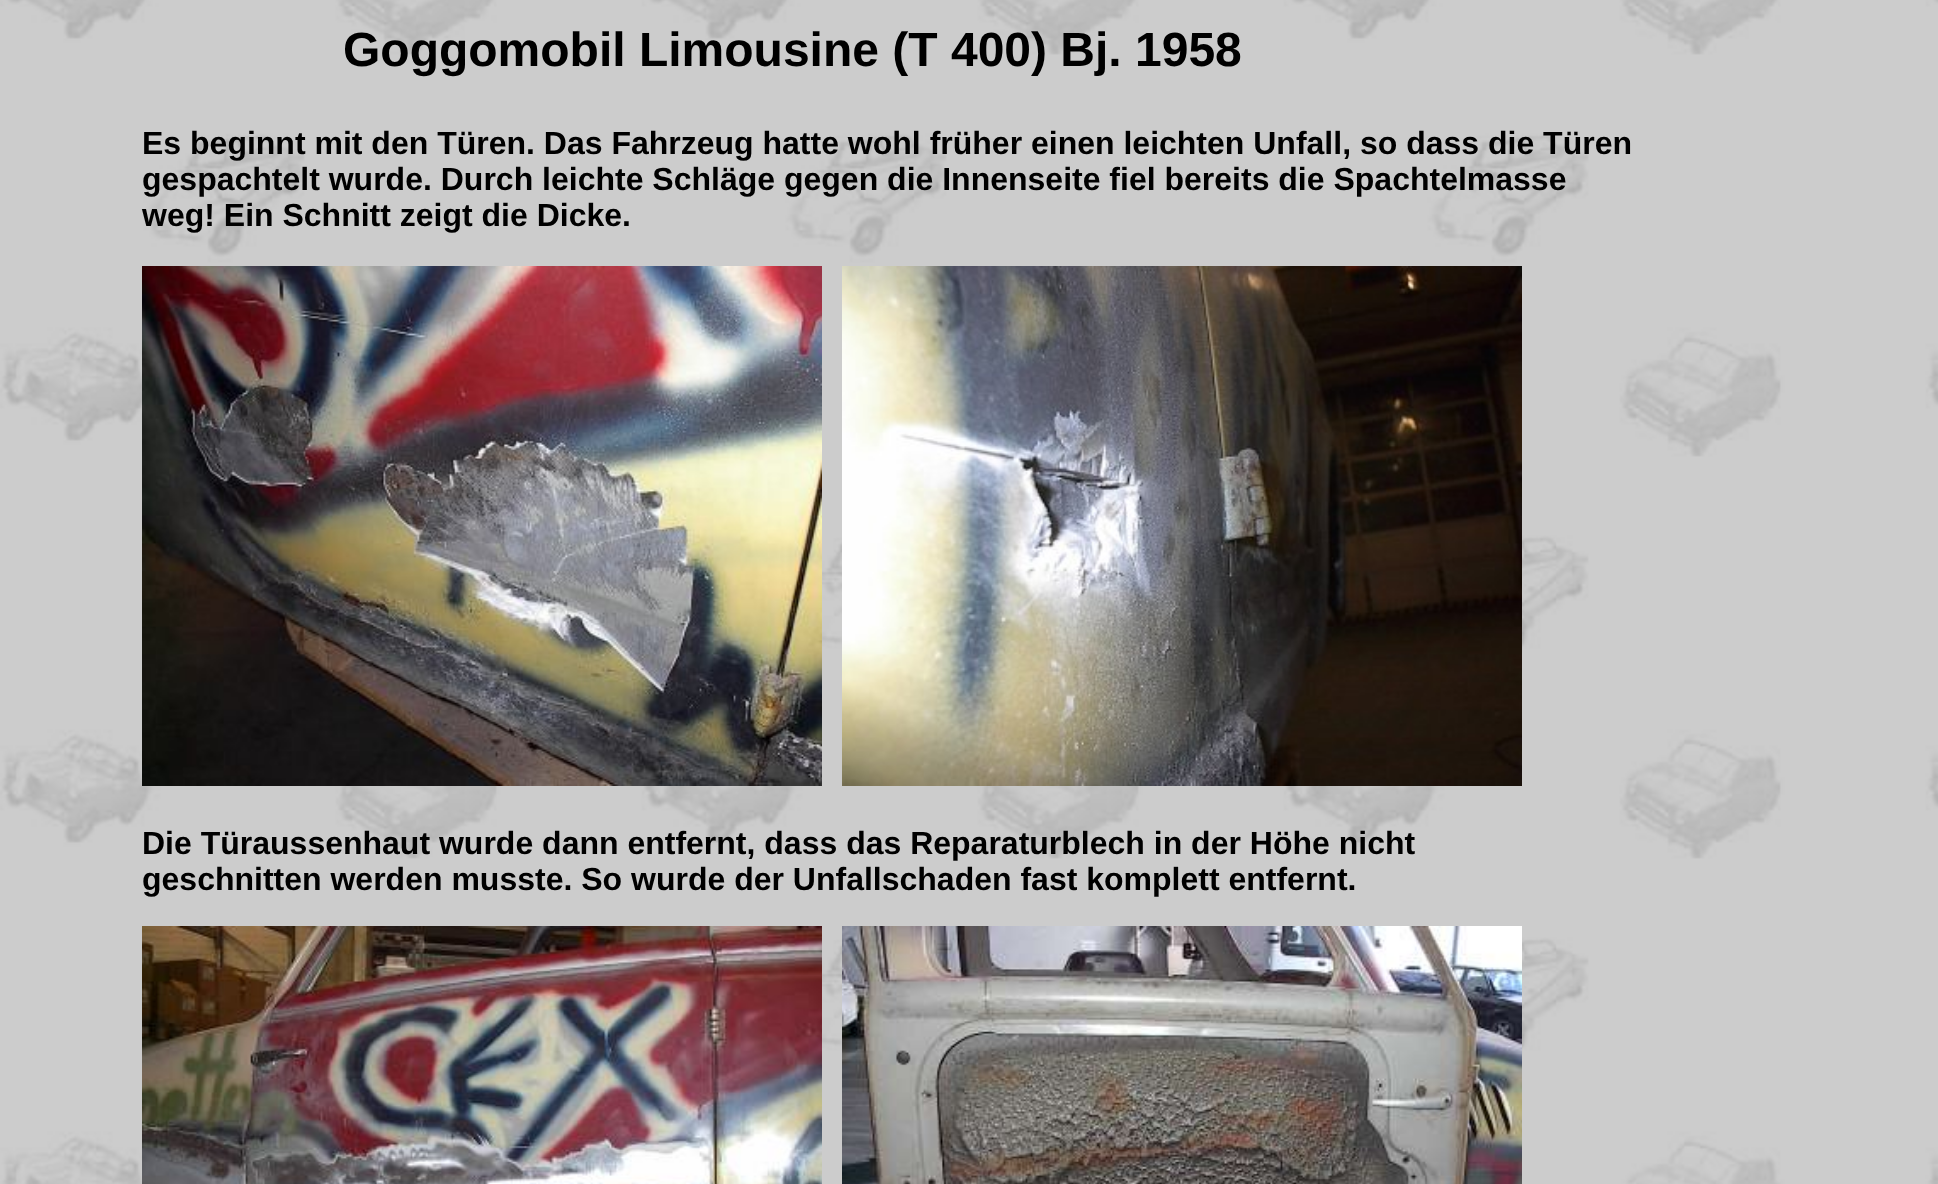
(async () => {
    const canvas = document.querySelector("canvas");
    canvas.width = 1938;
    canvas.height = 1184;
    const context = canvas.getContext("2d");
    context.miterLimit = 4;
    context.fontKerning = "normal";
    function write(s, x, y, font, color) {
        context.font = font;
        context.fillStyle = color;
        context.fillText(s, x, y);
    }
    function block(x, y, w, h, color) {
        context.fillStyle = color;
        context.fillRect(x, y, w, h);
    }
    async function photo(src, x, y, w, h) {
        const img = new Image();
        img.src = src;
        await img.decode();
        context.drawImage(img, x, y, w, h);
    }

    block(0, 0, 1938, 1184, "rgb(255, 255, 255)");
    await photo("media/1.png", 0, 0, 1938, 1184);
    write("Goggomobil Limousine (T 400) Bj. 1958", 343, 66, "bold 48px Liberation Sans", "rgb(0, 0, 0)");
    write("Es beginnt mit den Türen. Das Fahrzeug hatte wohl früher einen leichten Unfall, so dass die Türen", 142, 154, "bold 32px Liberation Sans", "rgb(0, 0, 0)");
    write("gespachtelt wurde. Durch leichte Schläge gegen die Innenseite fiel bereits die Spachtelmasse", 142, 190, "bold 32px Liberation Sans", "rgb(0, 0, 0)");
    write("weg! Ein Schnitt zeigt die Dicke.", 142, 226, "bold 32px Liberation Sans", "rgb(0, 0, 0)");
    await photo("media/2.png", 142, 266, 680, 520);
    await photo("media/3.png", 842, 266, 680, 520);
    write("Die Türaussenhaut wurde dann entfernt, dass das Reparaturblech in der Höhe nicht", 142, 854, "bold 32px Liberation Sans", "rgb(0, 0, 0)");
    write("geschnitten werden musste. So wurde der Unfallschaden fast komplett entfernt.", 142, 890, "bold 32px Liberation Sans", "rgb(0, 0, 0)");
    await photo("media/4.png", 142, 926, 680, 258);
    await photo("media/5.png", 842, 926, 680, 258);
})();
